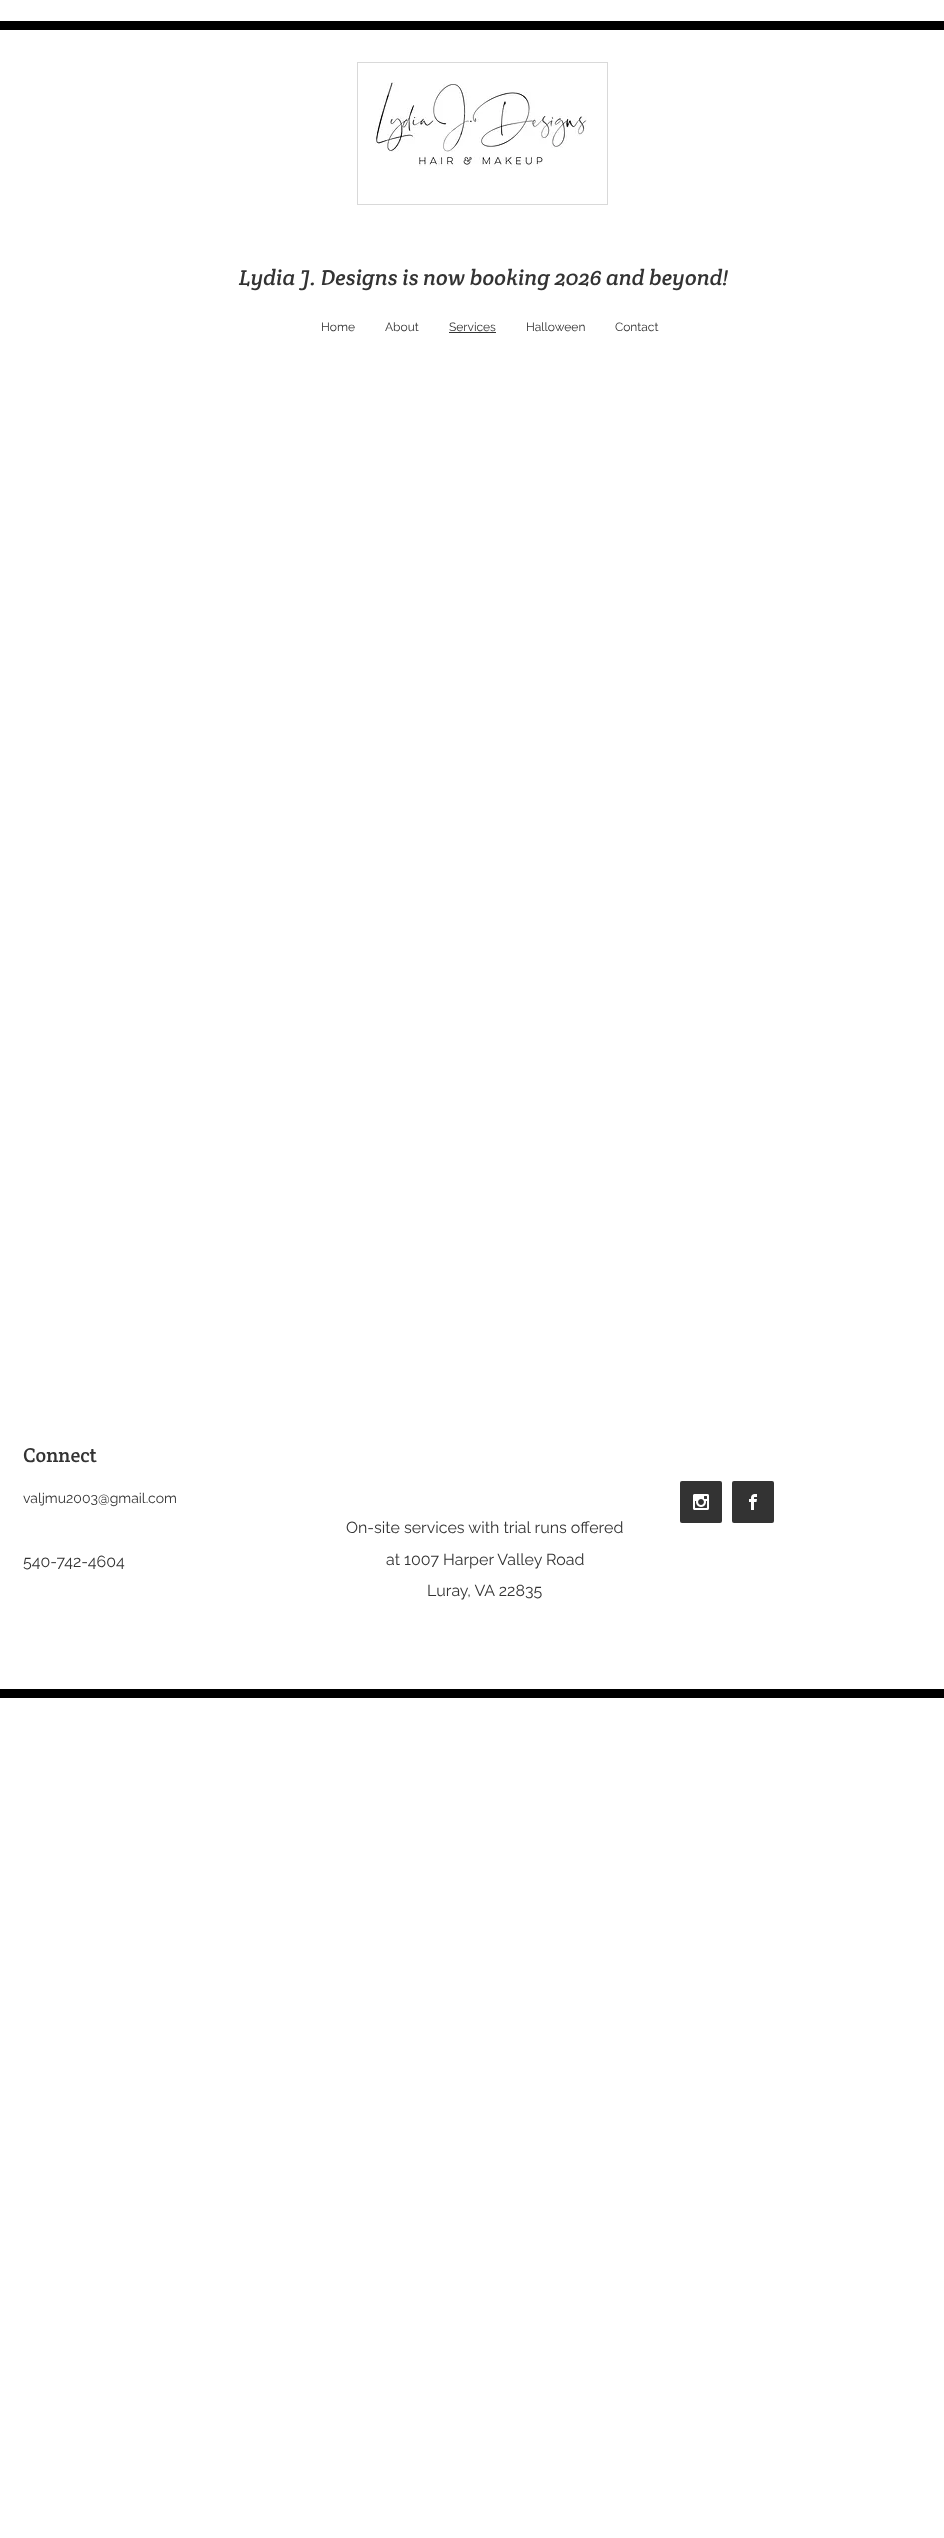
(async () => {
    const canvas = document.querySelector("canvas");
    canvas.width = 944;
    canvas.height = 2538;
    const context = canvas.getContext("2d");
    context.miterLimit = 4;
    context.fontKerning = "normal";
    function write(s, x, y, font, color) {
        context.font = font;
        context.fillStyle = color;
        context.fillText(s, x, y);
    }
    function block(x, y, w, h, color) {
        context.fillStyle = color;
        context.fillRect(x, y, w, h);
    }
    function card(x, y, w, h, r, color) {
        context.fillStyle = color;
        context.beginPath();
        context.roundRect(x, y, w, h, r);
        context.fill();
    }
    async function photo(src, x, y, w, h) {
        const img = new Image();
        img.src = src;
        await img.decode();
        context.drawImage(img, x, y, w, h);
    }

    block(0, 0, 944, 2538, "rgb(255, 255, 255)");
    block(0, 21, 944, 9, "rgb(0, 0, 0)");
    context.strokeStyle = "rgb(217, 217, 217)";
    context.strokeRect(357.5, 62.5, 250, 142);
    await photo("media/1.png", 375, 80, 212, 88);
    write("Lydia J. Designs is now booking 2026 and beyond!", 239, 285, "italic 21.75px Crete Round", "rgb(51, 51, 51)");
    write("Home", 321, 331, "12px 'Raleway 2'", "rgb(51, 51, 51)");
    write("About", 385, 331, "12px 'Raleway 2'", "rgb(51, 51, 51)");
    write("Services", 449, 331, "12px 'Raleway 2'", "rgb(51, 51, 51)");
    block(449, 332, 47, 1, "rgb(51, 51, 51)");
    write("Halloween", 526, 331, "12px 'Raleway 2'", "rgb(51, 51, 51)");
    write("Contact", 615, 331, "12px 'Raleway 2'", "rgb(51, 51, 51)");
    write("Connect", 23, 1462, "20px Crete Round", "rgb(51, 51, 51)");
    write("valjmu2003@gmail.com", 23, 1503, "14px Raleway", "rgb(51, 51, 51)");
    write("540-742-4604", 23, 1567, "16px Raleway", "rgb(51, 51, 51)");
    card(680, 1481, 42, 42, 2, "rgb(51, 51, 51)");
    await photo("media/2.png", 693, 1494, 16, 16);
    card(732, 1481, 42, 42, 2, "rgb(51, 51, 51)");
    await photo("media/3.png", 749, 1494, 8, 16);
    write("On-site services with trial runs offered", 346, 1533, "16px Raleway", "rgb(51, 51, 51)");
    write("at 1007 Harper Valley Road", 386, 1565, "16px Raleway", "rgb(51, 51, 51)");
    write("Luray, VA 22835", 427, 1596, "16px Raleway", "rgb(51, 51, 51)");
    block(0, 1689, 944, 9, "rgb(0, 0, 0)");
})();
